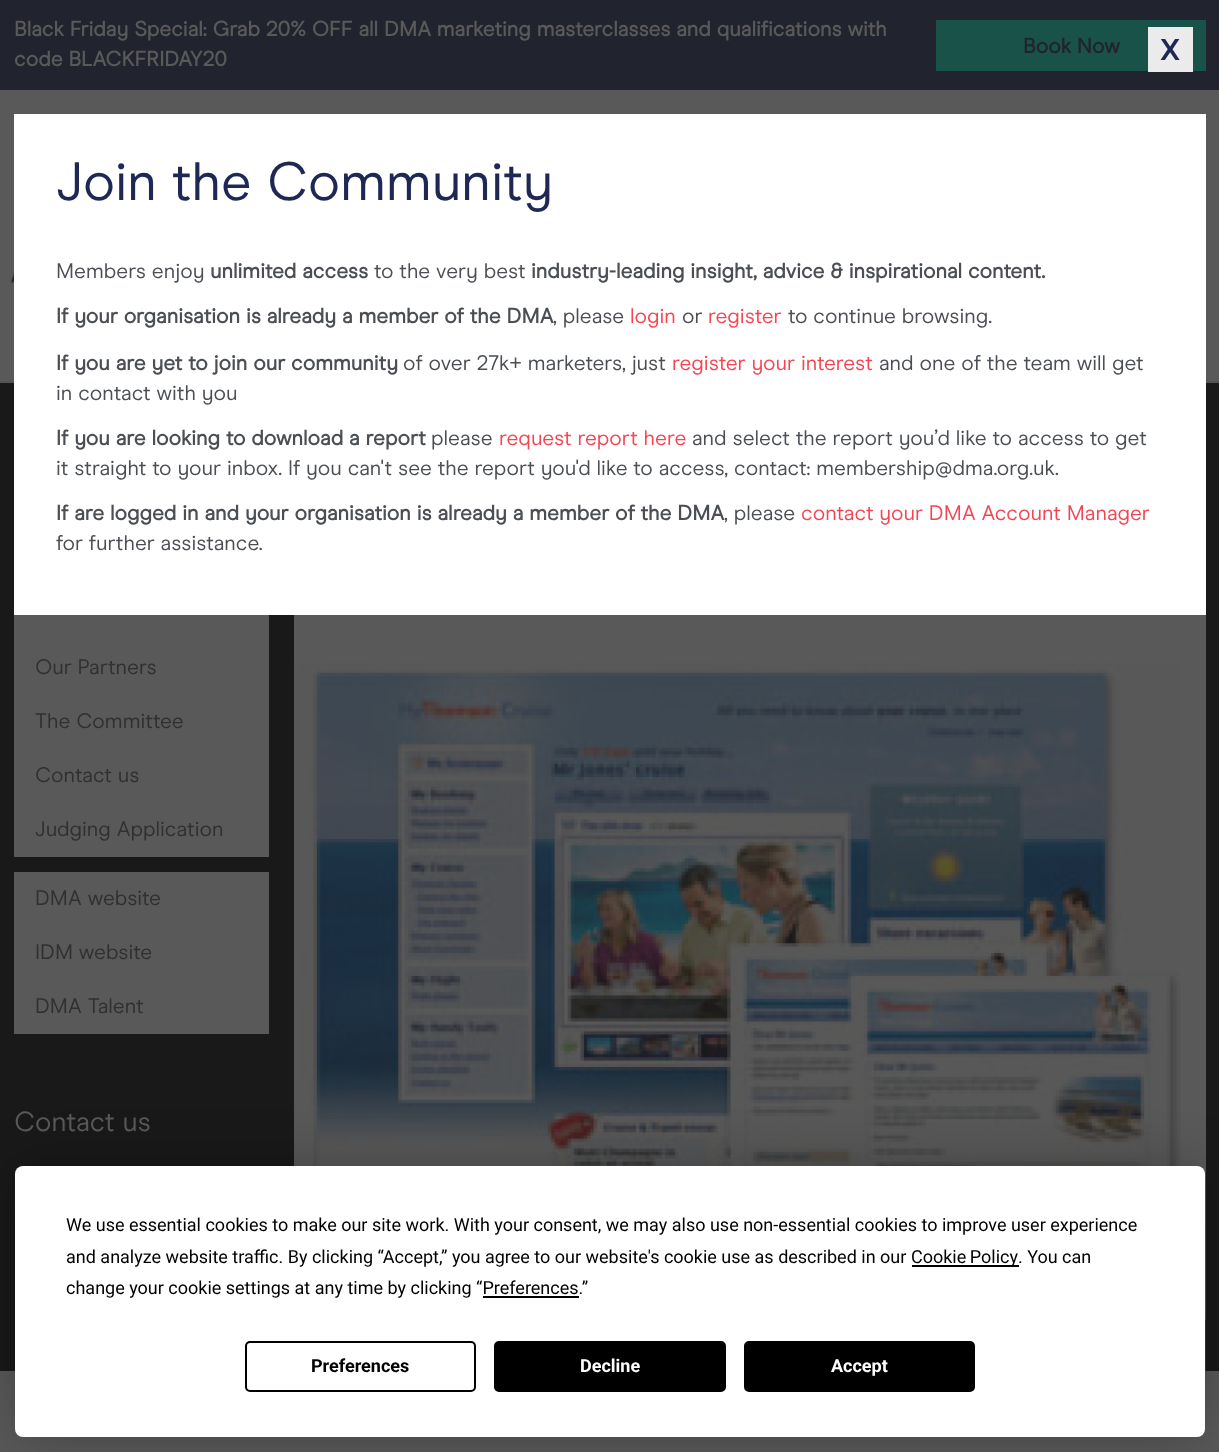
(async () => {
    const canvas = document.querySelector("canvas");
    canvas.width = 1219;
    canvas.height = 1452;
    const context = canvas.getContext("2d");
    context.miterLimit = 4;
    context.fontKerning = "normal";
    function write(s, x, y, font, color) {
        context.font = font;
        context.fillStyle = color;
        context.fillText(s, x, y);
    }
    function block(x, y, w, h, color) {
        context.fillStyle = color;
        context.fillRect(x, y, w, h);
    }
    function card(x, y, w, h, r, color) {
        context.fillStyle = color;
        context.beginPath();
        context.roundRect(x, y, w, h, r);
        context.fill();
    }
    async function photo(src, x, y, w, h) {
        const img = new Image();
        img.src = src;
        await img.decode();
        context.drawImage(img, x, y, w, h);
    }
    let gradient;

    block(0, 0, 1219, 1452, "rgb(25, 25, 25)");
    block(0, 0, 1219, 90, "rgb(33, 35, 46)");
    write("Black Friday Special: Grab 20% OFF all DMA marketing masterclasses and qualifications with", 14, 36, "bold 21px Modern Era", "rgb(89, 89, 89)");
    write("code BLACKFRIDAY20", 14, 66, "bold 21px Modern Era", "rgb(89, 89, 89)");
    block(936, 20, 270, 51, "rgb(25, 82, 73)");
    write("Book Now", 1023, 53, "bold 21px Modern Era", "rgb(33, 35, 46)");
    block(0, 90, 1219, 291, "rgb(89, 89, 89)");
    await photo("media/1.png", 10, 271, 4, 13);
    block(0, 381, 1219, 2, "rgb(83, 83, 83)");
    block(14, 615, 255, 242, "rgb(89, 89, 89)");
    write("Our Partners", 35, 674, "21px Modern Era", "rgb(47, 48, 48)");
    write("The Committee", 35, 728, "21px Modern Era", "rgb(47, 48, 48)");
    write("Contact us", 35, 782, "21px Modern Era", "rgb(47, 48, 48)");
    write("Judging Application", 35, 836, "21px Modern Era", "rgb(47, 48, 48)");
    block(14, 872, 255, 162, "rgb(89, 89, 89)");
    write("DMA website", 35, 905, "21px Modern Era", "rgb(47, 48, 48)");
    write("IDM website", 35, 959, "21px Modern Era", "rgb(47, 48, 48)");
    write("DMA Talent", 35, 1013, "21px Modern Era", "rgb(47, 48, 48)");
    write("Contact us", 14, 1131, "27.5px Modern Era", "rgb(89, 89, 89)");
    block(294, 615, 912, 48, "rgb(89, 89, 89)");
    block(1181, 663, 25, 657, "rgb(89, 89, 89)");
    await photo("media/2.png", 294, 663, 887, 503);
    block(0, 1371, 1219, 81, "rgb(89, 89, 89)");
    gradient = context.createLinearGradient(610, 1311, 610, 1371);
    gradient.addColorStop(0, "rgba(25, 25, 25, 0)");
    gradient.addColorStop(1, "rgb(25, 25, 25)");
    context.fillStyle = gradient;
    context.fillRect(1181, 1313, 25, 7);
    block(1205, 1320, 1, 51, "rgb(87, 42, 46)");
    block(1148, 27, 45, 45, "rgb(235, 235, 235)");
    write("X", 1160, 60, "bold 30px 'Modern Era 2'", "rgb(31, 39, 85)");
    block(14, 114, 1192, 501, "rgb(255, 255, 255)");
    write("Join the Community", 56, 200, "54px Modern Era", "rgb(31, 39, 85)");
    write("Members enjoy", 56, 278, "21px Modern Era", "rgb(75, 79, 84)");
    write("unlimited access", 210, 278, "bold 21px Modern Era", "rgb(75, 79, 84)");
    write("to the very best", 374, 278, "21px Modern Era", "rgb(75, 79, 84)");
    write("industry-leading insight, advice & inspirational content.", 531, 278, "bold 21px Modern Era", "rgb(75, 79, 84)");
    write("If your organisation is already a member of the DMA", 56, 323, "bold 21px Modern Era", "rgb(75, 79, 84)");
    write(", please", 553, 323, "21px Modern Era", "rgb(75, 79, 84)");
    write("login", 630, 323, "21px Modern Era", "rgb(246, 69, 82)");
    write("or", 682, 323, "21px Modern Era", "rgb(75, 79, 84)");
    write("register", 708, 323, "21px Modern Era", "rgb(246, 69, 82)");
    write("to continue browsing.", 788, 323, "21px Modern Era", "rgb(75, 79, 84)");
    write("If you are yet to join our community", 56, 370, "bold 21px Modern Era", "rgb(75, 79, 84)");
    write("of over 27k+ marketers, just", 403, 370, "21px Modern Era", "rgb(75, 79, 84)");
    write("register your interest", 672, 370, "21px Modern Era", "rgb(246, 69, 82)");
    write("and one of the team will get", 879, 370, "21px Modern Era", "rgb(75, 79, 84)");
    write("in contact with you", 56, 400, "21px Modern Era", "rgb(75, 79, 84)");
    write("If you are looking to download a report", 56, 445, "bold 21px Modern Era", "rgb(75, 79, 84)");
    write("please", 431, 445, "21px Modern Era", "rgb(75, 79, 84)");
    write("request report here", 499, 445, "21px Modern Era", "rgb(246, 69, 82)");
    write("and select the report you’d like to access to get", 692, 445, "21px Modern Era", "rgb(75, 79, 84)");
    write("it straight to your inbox. If you can't see the report you'd like to access, contact: membership@dma.org.uk.", 56, 475, "21px Modern Era", "rgb(75, 79, 84)");
    write("If are logged in and your organisation is already a member of the DMA", 56, 520, "bold 21px Modern Era", "rgb(75, 79, 84)");
    write(", please", 724, 520, "21px Modern Era", "rgb(75, 79, 84)");
    write("contact your DMA Account Manager", 801, 520, "21px Modern Era", "rgb(246, 69, 82)");
    write("for further assistance.", 56, 550, "21px Modern Era", "rgb(75, 79, 84)");
    context.fillStyle = "rgba(0, 0, 0, 0.25)";
    context.filter = "blur(26px)";
    context.beginPath();
    context.roundRect(15, 1166, 1190, 271, 8);
    context.fill();
    context.filter = "none";
    card(15, 1166, 1190, 271, 8, "rgb(255, 255, 255)");
    write("We use essential cookies to make our site work. With your consent, we may also use non-essential cookies to improve user experience", 66, 1231, "18px Roboto", "rgb(0, 0, 0)");
    write("and analyze website traffic. By clicking “Accept,” you agree to our website's cookie use as described in our", 66, 1263, "18px Roboto", "rgb(0, 0, 0)");
    block(912, 1265, 107, 2, "rgb(0, 0, 0)");
    context.wordSpacing = "-1px";
    write("Cookie Policy", 911, 1263, "18px Roboto", "rgb(0, 0, 0)");
    context.wordSpacing = "0px";
    write(". You can", 1018, 1263, "18px Roboto", "rgb(0, 0, 0)");
    write("change your cookie settings at any time by clicking “Preferences.”", 66, 1294, "18px Roboto", "rgb(0, 0, 0)");
    block(483, 1296, 96, 2, "rgb(0, 0, 0)");
    context.beginPath();
    context.roundRect(246, 1342, 229, 49, 4);
    context.strokeStyle = "rgb(0, 0, 0)";
    context.lineWidth = 2;
    context.stroke();
    write("Preferences", 311, 1372, "bold 18px Roboto", "rgb(0, 0, 0)");
    context.beginPath();
    context.roundRect(495, 1342, 230, 49, 4);
    context.fill();
    context.stroke();
    write("Decline", 580, 1372, "bold 18px Roboto", "rgb(255, 255, 255)");
    context.fillStyle = "rgb(0, 0, 0)";
    context.beginPath();
    context.roundRect(745, 1342, 229, 49, 4);
    context.fill();
    context.stroke();
    write("Accept", 831, 1372, "bold 18px Roboto", "rgb(255, 255, 255)");
})();
